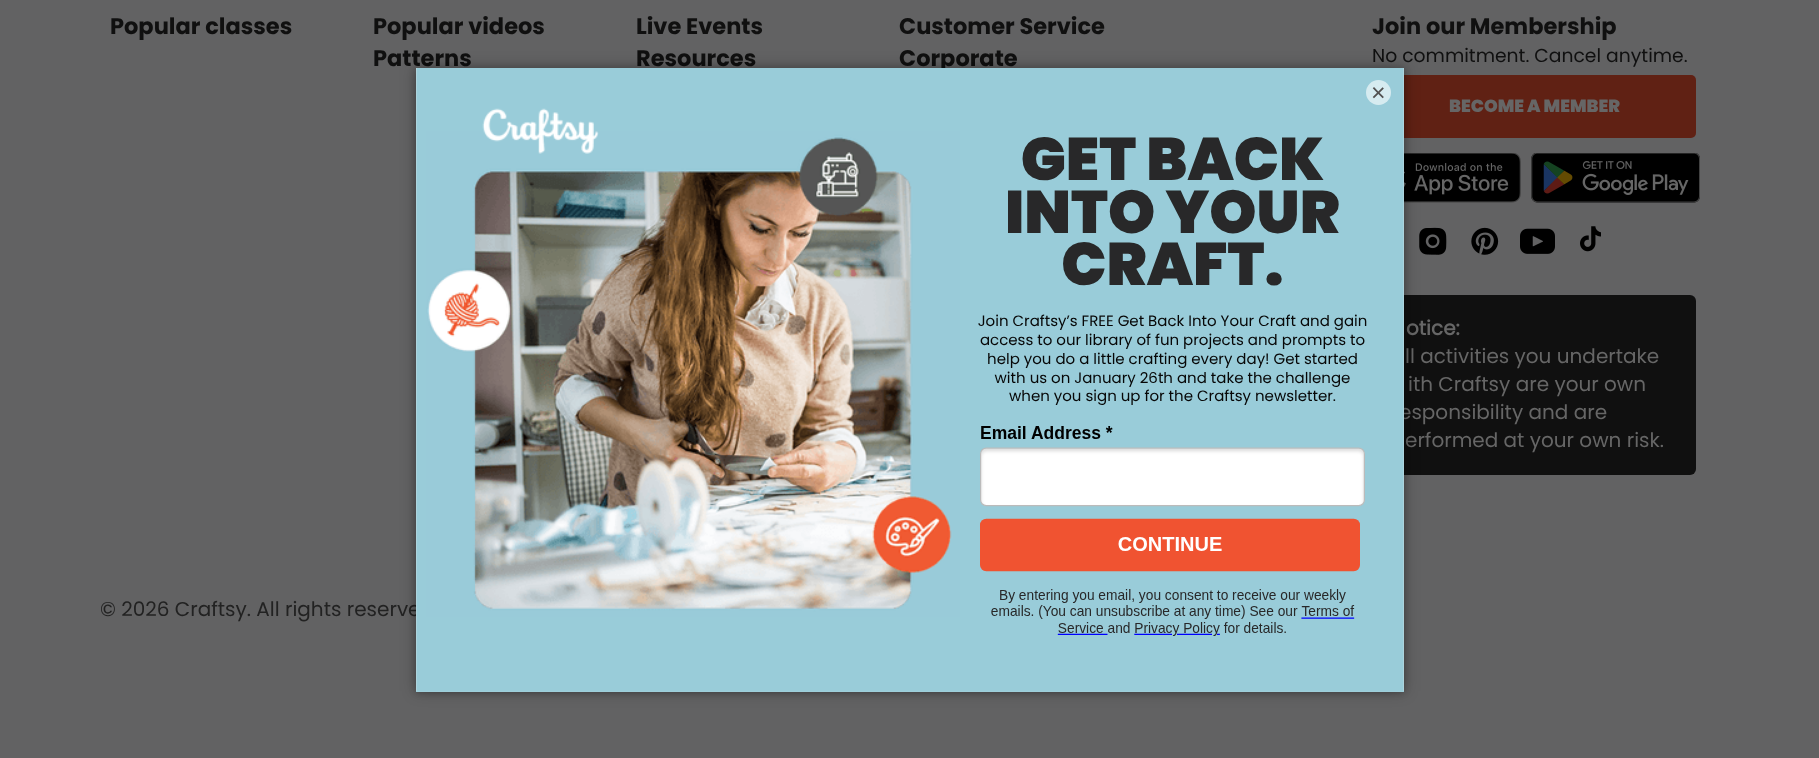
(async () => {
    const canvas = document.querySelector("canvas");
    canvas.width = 1819;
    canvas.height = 758;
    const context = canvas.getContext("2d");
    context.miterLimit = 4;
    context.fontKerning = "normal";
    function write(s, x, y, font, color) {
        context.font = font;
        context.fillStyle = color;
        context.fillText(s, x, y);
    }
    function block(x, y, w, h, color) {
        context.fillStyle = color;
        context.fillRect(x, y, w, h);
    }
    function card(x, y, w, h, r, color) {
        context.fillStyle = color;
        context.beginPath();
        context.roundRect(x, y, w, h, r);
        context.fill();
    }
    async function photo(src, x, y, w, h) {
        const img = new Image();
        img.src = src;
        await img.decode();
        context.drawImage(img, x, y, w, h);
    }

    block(0, 0, 1819, 758, "rgb(98, 98, 99)");
    write("Popular classes", 110, 34, "bold 22.5px Poppins", "rgb(16, 16, 16)");
    write("Popular videos", 373, 34, "bold 22.5px Poppins", "rgb(16, 16, 16)");
    write("Patterns", 373, 66, "bold 22.5px Poppins", "rgb(16, 16, 16)");
    write("Live Events", 636, 34, "bold 22.5px Poppins", "rgb(16, 16, 16)");
    write("Resources", 636, 66, "bold 22.5px Poppins", "rgb(16, 16, 16)");
    write("Customer Service", 899, 34, "bold 22.5px Poppins", "rgb(16, 16, 16)");
    write("Corporate", 899, 66, "bold 22.5px Poppins", "rgb(16, 16, 16)");
    write("Join our Membership", 1372, 34, "bold 22.5px Poppins", "rgb(16, 16, 16)");
    write("No commitment. Cancel anytime.", 1372, 62, "18.75px Poppins", "rgb(16, 16, 16)");
    card(1371, 75, 325, 63, 5, "rgb(96, 33, 20)");
    write("BECOME A MEMBER", 1449, 112, "900 17.5px Poppins", "rgb(102, 102, 102)");
    await photo("media/1.png", 1404, 153, 117, 50);
    await photo("media/2.png", 1531, 153, 169, 50);
    await photo("media/3.png", 1419, 227, 28, 28);
    await photo("media/4.png", 1471, 227, 28, 28);
    await photo("media/5.png", 1520, 228, 35, 26);
    await photo("media/6.png", 1580, 226, 21, 26);
    card(1371, 295, 325, 180, 6, "rgb(16, 16, 16)");
    write("otice:", 1406, 335, "bold 20px 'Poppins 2'", "rgb(102, 102, 102)");
    write("ll activities you undertake", 1405, 363, "20px Poppins", "rgb(102, 102, 102)");
    write("ith Craftsy are your own", 1408, 391, "20px Poppins", "rgb(102, 102, 102)");
    write("esponsibility and are", 1399, 419, "20px Poppins", "rgb(102, 102, 102)");
    write("erformed at your own risk.", 1405, 447, "20px Poppins", "rgb(102, 102, 102)");
    write("© 2026 Craftsy. All rights reserve", 100, 616, "20px Poppins", "rgb(34, 34, 34)");
    context.fillStyle = "rgba(0, 0, 0, 0.3)";
    context.filter = "blur(7.5px)";
    context.beginPath();
    context.rect(416, 68, 988, 623);
    context.fill();
    context.filter = "none";
    context.fillStyle = "rgba(0, 0, 0, 0.2)";
    context.filter = "blur(3px)";
    context.beginPath();
    context.rect(416, 69, 988, 624);
    context.fill();
    context.filter = "none";
    await photo("media/7.png", 416, 68, 988, 624);
    context.fillStyle = "rgb(214, 235, 240)";
    context.beginPath();
    context.arc(1378.5, 92.5, 12.5, 0, Math.PI * 2);
    context.fill();
    write("×", 1371, 101, "25px Liberation Sans", "rgb(82, 81, 81)");
})();
